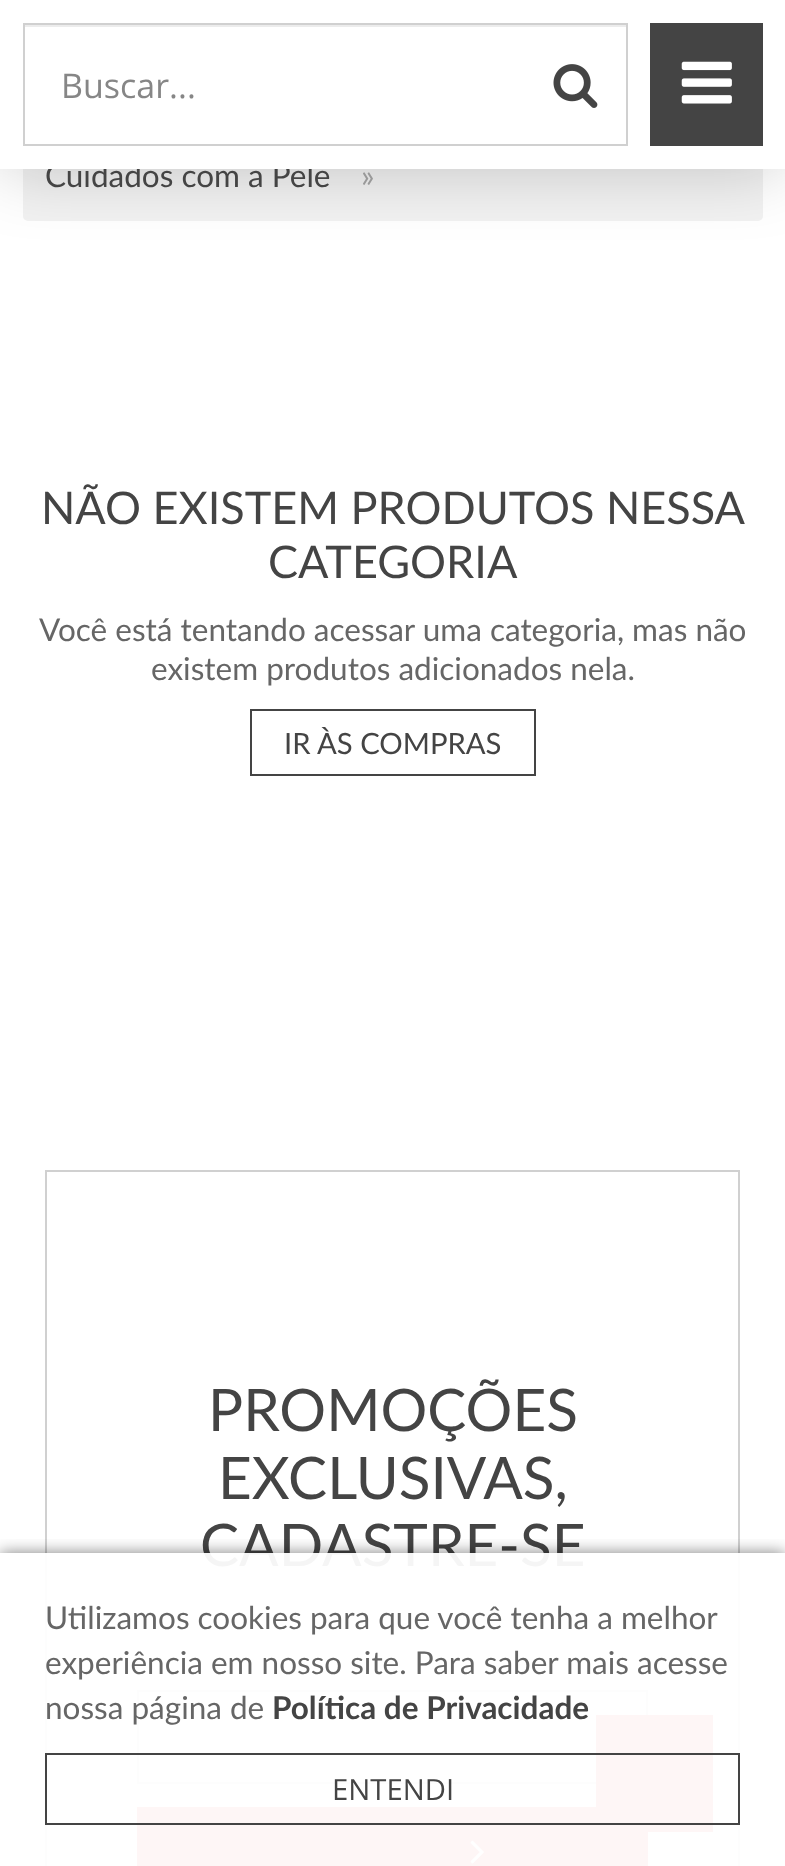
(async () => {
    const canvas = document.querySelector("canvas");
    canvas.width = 785;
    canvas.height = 1866;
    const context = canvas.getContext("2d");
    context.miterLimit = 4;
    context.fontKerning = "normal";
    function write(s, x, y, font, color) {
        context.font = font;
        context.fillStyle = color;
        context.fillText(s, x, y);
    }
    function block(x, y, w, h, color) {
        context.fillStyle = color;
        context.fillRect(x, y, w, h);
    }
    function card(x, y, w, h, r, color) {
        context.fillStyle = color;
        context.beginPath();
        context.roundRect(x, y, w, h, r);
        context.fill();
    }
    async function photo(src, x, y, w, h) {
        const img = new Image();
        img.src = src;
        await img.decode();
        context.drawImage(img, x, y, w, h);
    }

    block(0, 0, 785, 1866, "rgb(255, 255, 255)");
    card(23, 131, 740, 90, 5, "rgb(242, 242, 242)");
    context.fillStyle = "rgba(0, 0, 0, 0.2)";
    context.filter = "blur(34px)";
    context.beginPath();
    context.rect(0, 0, 785, 169);
    context.fill();
    context.filter = "none";
    write("Cuidados com a Pele", 45, 187, "31.5px Lato", "rgb(68, 68, 68)");
    block(0, 0, 785, 169, "rgb(255, 255, 255)");
    block(25, 25, 601, 2, "rgb(236, 236, 236)");
    context.strokeStyle = "rgb(208, 208, 208)";
    context.lineWidth = 2;
    context.strokeRect(24, 24, 603, 121);
    write("Buscar...", 61, 98, "34px Open Sans", "rgb(134, 134, 134)");
    await photo("media/1.png", 553, 64, 45, 44);
    block(650, 23, 113, 123, "rgb(68, 68, 68)");
    await photo("media/2.png", 681, 61, 51, 43);
    write("»", 361, 187, "31.5px Lato", "rgb(153, 153, 153)");
    write("NÃO EXISTEM PRODUTOS NESSA", 41, 524, "45px Lato", "rgb(68, 68, 68)");
    write("CATEGORIA", 268, 578, "45px Lato", "rgb(68, 68, 68)");
    write("Você está tentando acessar uma categoria, mas não", 39, 641, "31.5px Lato", "rgb(102, 102, 102)");
    write("existem produtos adicionados nela.", 151, 680, "31.5px Lato", "rgb(102, 102, 102)");
    context.strokeStyle = "rgb(68, 68, 68)";
    context.strokeRect(251, 710, 284, 65);
    write("IR ÀS COMPRAS", 284, 754, "29.25px Lato", "rgb(68, 68, 68)");
    context.strokeStyle = "rgb(208, 208, 208)";
    context.strokeRect(46, 1171, 693, 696);
    write("PROMOÇÕES", 208, 1431, "58.5px Lato", "rgb(68, 68, 68)");
    write("EXCLUSIVAS,", 218, 1499, "58.5px Lato", "rgb(68, 68, 68)");
    write("CADASTRE-SE", 200, 1566, "58.5px Lato", "rgb(68, 68, 68)");
    context.strokeRect(138, 1691, 509, 92);
    block(137, 1807, 511, 59, "rgb(225, 86, 86)");
    await photo("media/3.png", 470, 1840, 14, 24);
    block(596, 1715, 117, 117, "rgb(225, 86, 86)");
    context.save();
    context.beginPath();
    context.rect(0, 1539, 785, 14);
    context.clip();
    context.fillStyle = "rgba(0, 0, 0, 0.5)";
    context.filter = "blur(8px)";
    context.beginPath();
    context.rect(0, 1553, 785, 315);
    context.fill();
    context.filter = "none";
    context.restore();
    block(45, 1553, 695, 313, "rgba(255, 255, 255, 0.95)");
    write("Utilizamos cookies para que você tenha a melhor", 45, 1629, "31.5px Lato", "rgb(102, 102, 102)");
    write("experiência em nosso site. Para saber mais acesse", 45, 1674, "31.5px Lato", "rgb(102, 102, 102)");
    write("nossa página de", 45, 1719, "31.5px Lato", "rgb(102, 102, 102)");
    write("Política de Privacidade", 272, 1719, "bold 31.5px Lato", "rgb(68, 68, 68)");
    context.strokeStyle = "rgb(68, 68, 68)";
    context.strokeRect(46, 1754, 693, 70);
    write("ENTENDI", 332, 1800, "29.25px Open Sans", "rgb(68, 68, 68)");
})();
